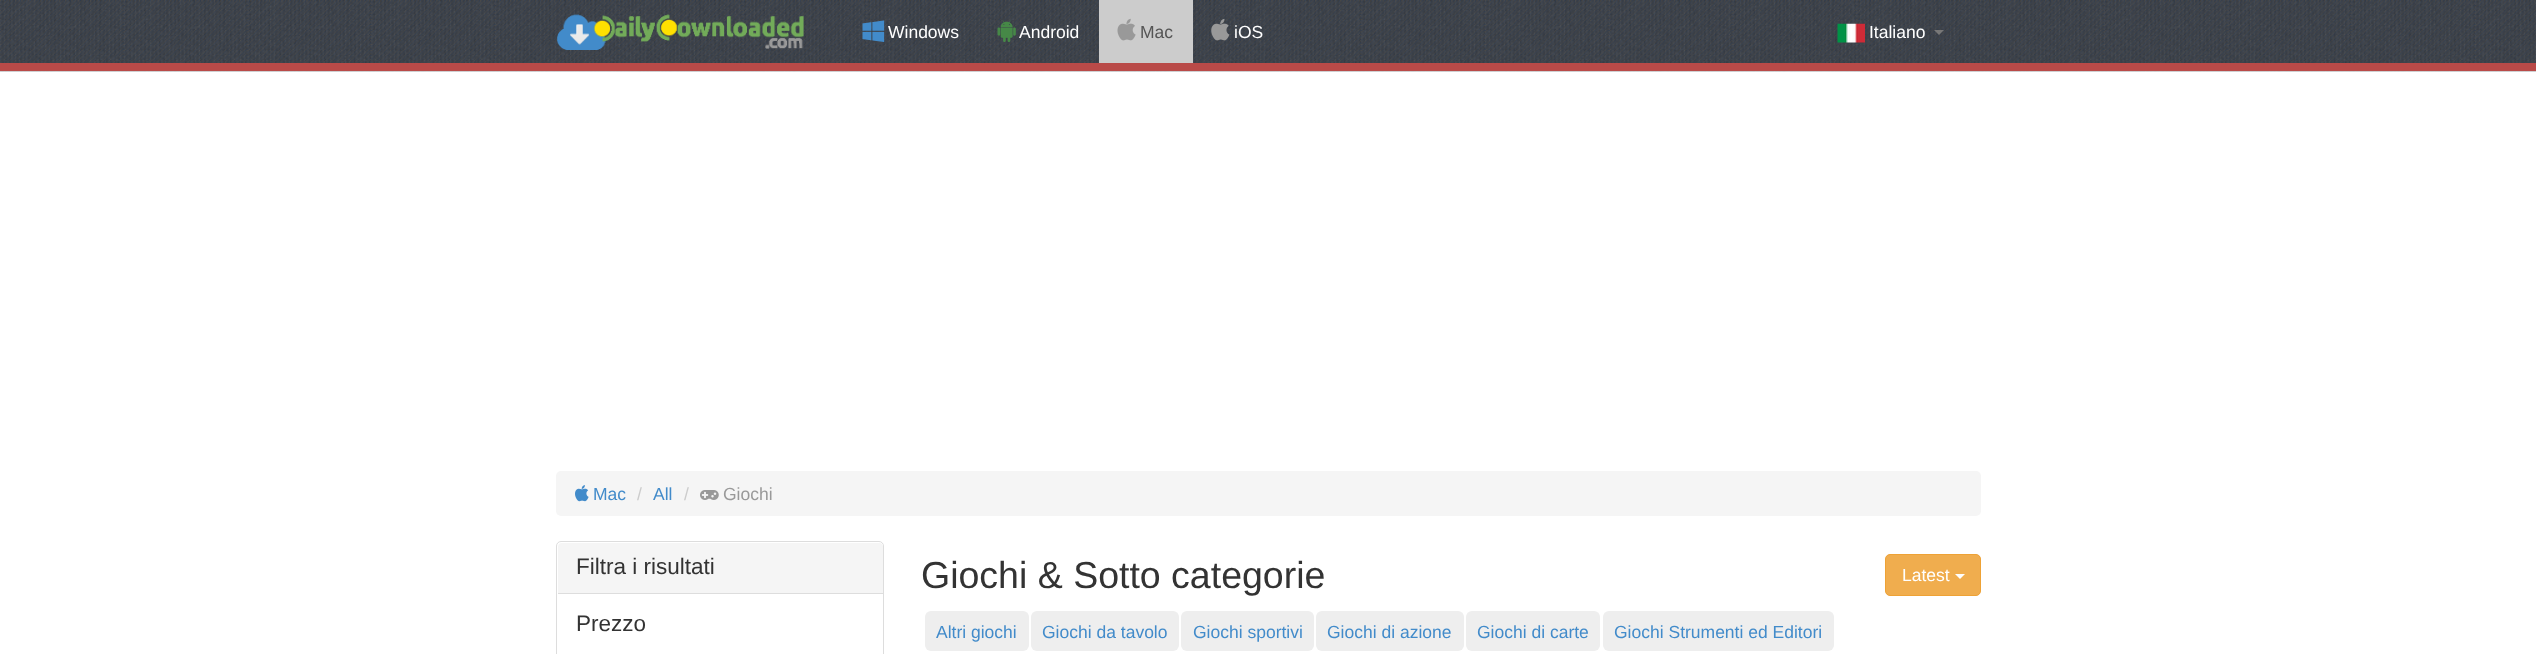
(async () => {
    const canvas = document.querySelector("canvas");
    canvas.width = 2536;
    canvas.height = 654;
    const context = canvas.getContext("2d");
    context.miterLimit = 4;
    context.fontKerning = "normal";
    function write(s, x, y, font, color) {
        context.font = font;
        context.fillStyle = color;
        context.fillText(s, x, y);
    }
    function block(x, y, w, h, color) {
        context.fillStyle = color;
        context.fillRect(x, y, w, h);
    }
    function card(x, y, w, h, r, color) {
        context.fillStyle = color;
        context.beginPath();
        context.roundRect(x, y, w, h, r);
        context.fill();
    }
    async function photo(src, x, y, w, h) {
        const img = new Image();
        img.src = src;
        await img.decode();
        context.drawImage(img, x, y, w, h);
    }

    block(0, 0, 2536, 654, "rgb(255, 255, 255)");
    await photo("media/1.png", 0, 0, 2536, 72);
    block(0, 63, 2536, 8, "rgb(185, 74, 72)");
    await photo("media/2.png", 557, 14, 247, 36);
    await photo("media/3.png", 862, 20, 23, 22);
    write("Windows", 888, 38, "17.5px Liberation Sans", "rgb(255, 255, 255)");
    await photo("media/4.png", 997, 20, 19, 22);
    write("Android", 1019, 38, "17.5px Liberation Sans", "rgb(255, 255, 255)");
    block(1099, 0, 94, 63, "rgb(204, 204, 204)");
    await photo("media/5.png", 1117, 18, 19, 23);
    write("Mac", 1140, 38, "17.5px Liberation Sans", "rgb(85, 85, 85)");
    await photo("media/6.png", 1211, 18, 19, 23);
    write("iOS", 1234, 38, "17.5px Liberation Sans", "rgb(255, 255, 255)");
    await photo("media/7.png", 1837, 23, 28, 20);
    write("Italiano", 1869, 38, "17.5px Liberation Sans", "rgb(255, 255, 255)");
    context.fillStyle = "rgb(119, 119, 119)";
    context.beginPath();
    context.moveTo(1934, 30);
    context.lineTo(1944, 30);
    context.lineTo(1939, 35);
    context.closePath();
    context.fill();
    card(556, 471, 1425, 45, 5, "rgb(245, 245, 245)");
    await photo("media/8.png", 575, 485, 14, 17);
    write("Mac", 593, 500, "17.5px Liberation Sans", "rgb(66, 139, 202)");
    write("/", 637, 500, "17.5px Liberation Sans", "rgb(204, 204, 204)");
    write("All", 653, 500, "17.5px Liberation Sans", "rgb(66, 139, 202)");
    write("/", 684, 500, "17.5px Liberation Sans", "rgb(204, 204, 204)");
    await photo("media/9.png", 700, 490, 19, 10);
    write("Giochi", 723, 500, "17.5px Liberation Sans", "rgb(153, 153, 153)");
    context.beginPath();
    context.roundRect(556.5, 541.5, 327, 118, 4.5);
    context.strokeStyle = "rgb(221, 221, 221)";
    context.stroke();
    context.fillStyle = "rgb(245, 245, 245)";
    context.beginPath();
    context.roundRect(558, 543, 325, 51, [4, 4, 0, 0]);
    context.fill();
    block(558, 593, 325, 1, "rgb(221, 221, 221)");
    write("Filtra i risultati", 576, 574, "22.5px Liberation Sans", "rgb(51, 51, 51)");
    write("Prezzo", 576, 631, "22.5px Liberation Sans", "rgb(51, 51, 51)");
    write("Giochi & Sotto categorie", 921, 588, "37.5px Liberation Sans", "rgb(51, 51, 51)");
    context.fillStyle = "rgb(240, 173, 78)";
    context.beginPath();
    context.roundRect(1885.5, 554.5, 95, 41, 4.5);
    context.fill();
    context.strokeStyle = "rgb(238, 162, 54)";
    context.stroke();
    write("Latest", 1902, 581, "17.5px Liberation Sans", "rgb(255, 255, 255)");
    context.beginPath();
    context.moveTo(1955, 574);
    context.lineTo(1965, 574);
    context.lineTo(1960, 579);
    context.closePath();
    context.fill();
    card(925, 611, 104, 40, 6, "rgb(238, 238, 238)");
    write("Altri giochi", 936, 638, "17.5px Liberation Sans", "rgb(66, 139, 202)");
    card(1031, 611, 148, 40, 6, "rgb(238, 238, 238)");
    write("Giochi da tavolo", 1042, 638, "17.5px Liberation Sans", "rgb(66, 139, 202)");
    card(1181, 611, 133, 40, 6, "rgb(238, 238, 238)");
    write("Giochi sportivi", 1193, 638, "17.5px Liberation Sans", "rgb(66, 139, 202)");
    card(1316, 611, 148, 40, 6, "rgb(238, 238, 238)");
    write("Giochi di azione", 1327, 638, "17.5px Liberation Sans", "rgb(66, 139, 202)");
    card(1466, 611, 134, 40, 6, "rgb(238, 238, 238)");
    write("Giochi di carte", 1477, 638, "17.5px Liberation Sans", "rgb(66, 139, 202)");
    card(1603, 611, 231, 40, 6, "rgb(238, 238, 238)");
    write("Giochi Strumenti ed Editori", 1614, 638, "17.5px Liberation Sans", "rgb(66, 139, 202)");
})();
